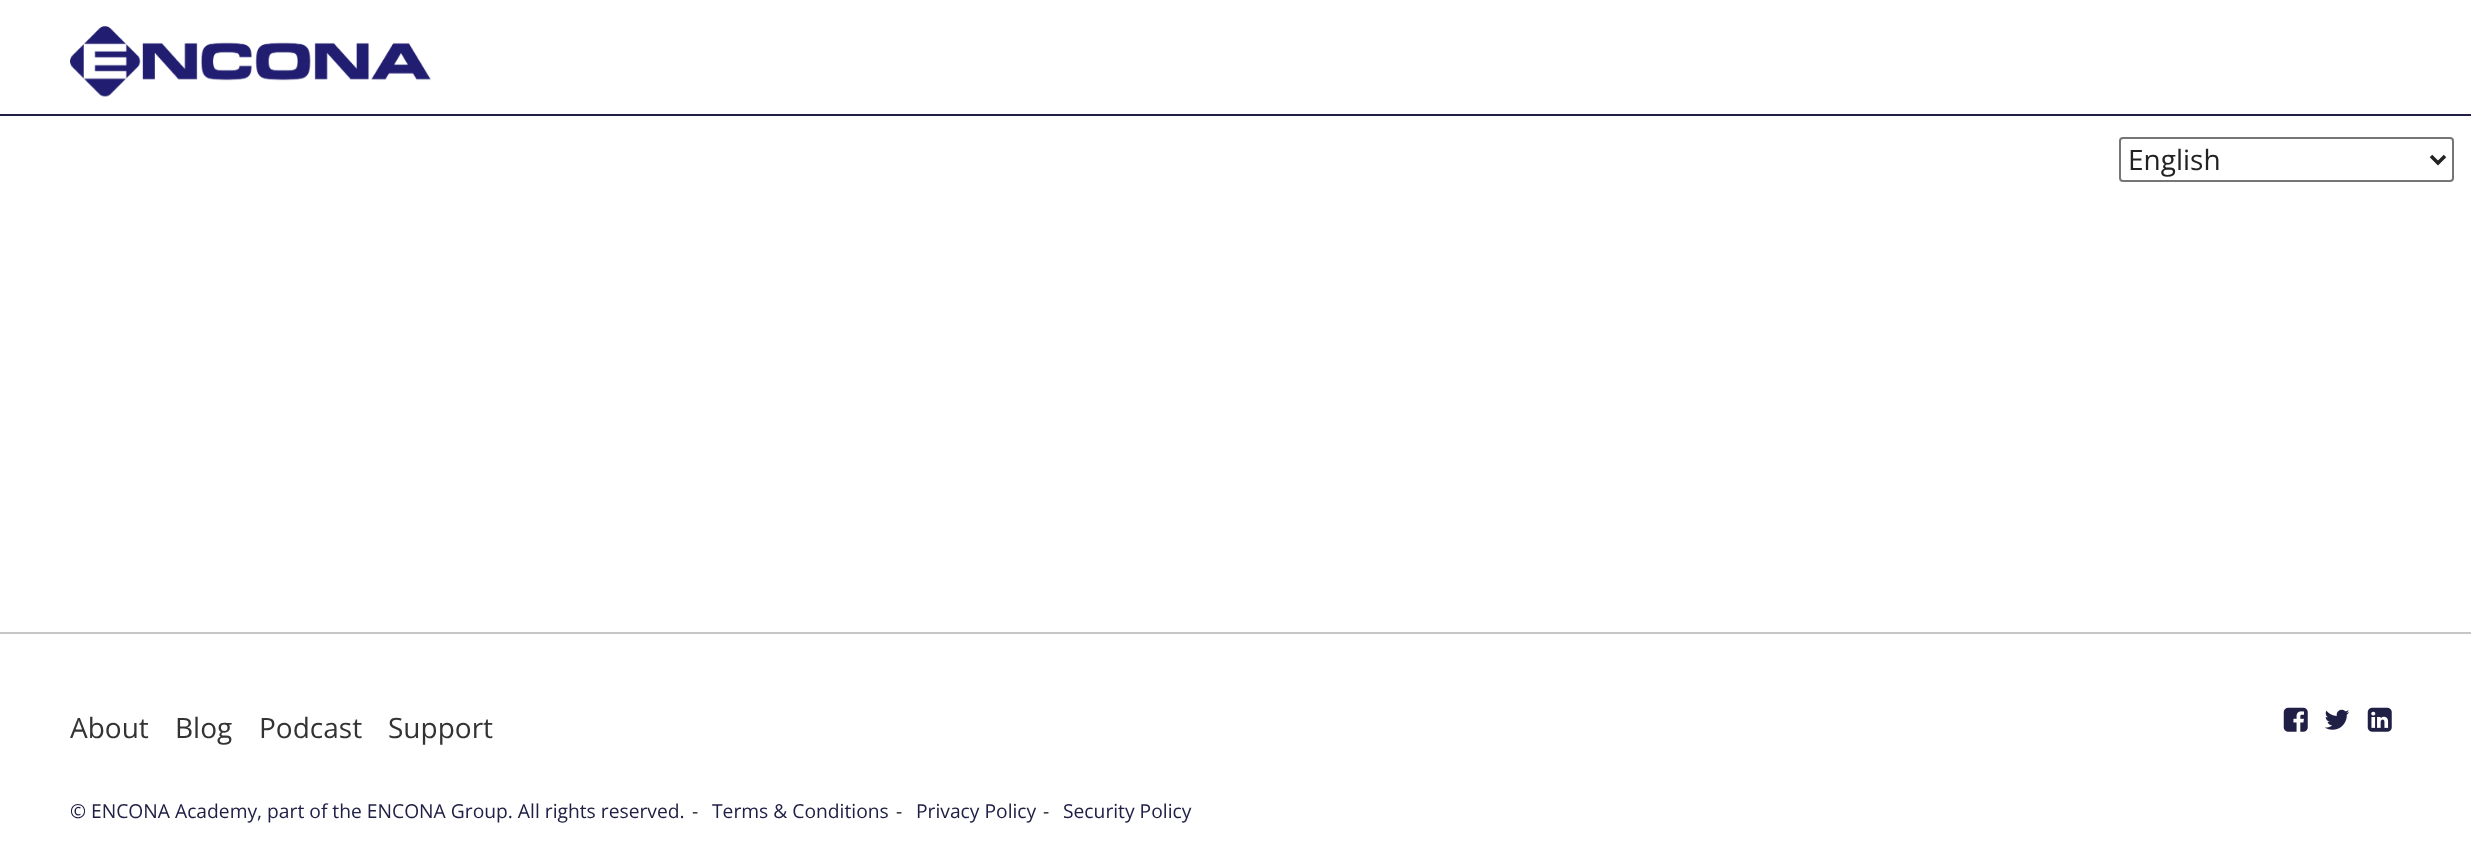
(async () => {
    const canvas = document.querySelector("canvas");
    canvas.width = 2471;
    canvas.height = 862;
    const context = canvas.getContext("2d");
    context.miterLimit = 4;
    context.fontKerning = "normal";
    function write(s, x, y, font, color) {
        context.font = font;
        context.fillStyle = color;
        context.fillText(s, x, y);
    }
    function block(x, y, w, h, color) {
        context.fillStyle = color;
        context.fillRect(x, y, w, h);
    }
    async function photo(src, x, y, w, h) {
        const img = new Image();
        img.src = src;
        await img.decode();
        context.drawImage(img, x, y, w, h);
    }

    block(0, 0, 2471, 862, "rgb(255, 255, 255)");
    block(0, 114, 2471, 2, "rgb(32, 32, 70)");
    await photo("media/1.png", 70, 26, 361, 71);
    context.beginPath();
    context.roundRect(2120, 138, 333, 43, 3);
    context.strokeStyle = "rgb(118, 118, 118)";
    context.lineWidth = 2;
    context.stroke();
    context.beginPath();
    context.moveTo(2431, 156);
    context.lineTo(2438, 163);
    context.lineTo(2445, 156);
    context.strokeStyle = "rgb(34, 34, 34)";
    context.lineWidth = 3.5;
    context.stroke();
    write("English", 2128, 170, "28px Open Sans", "rgb(34, 34, 34)");
    block(0, 632, 2471, 2, "rgb(197, 198, 199)");
    write("About", 70, 738, "28px Open Sans", "rgb(51, 51, 51)");
    write("Blog", 175, 738, "28px Open Sans", "rgb(51, 51, 51)");
    write("Podcast", 259, 738, "28px Open Sans", "rgb(51, 51, 51)");
    write("Support", 388, 738, "28px Open Sans", "rgb(51, 51, 51)");
    write("© ENCONA Academy, part of the ENCONA Group. All rights reserved.", 70, 818, "19.25px Open Sans", "rgb(32, 32, 70)");
    write("-", 692, 818, "19.25px Open Sans", "rgb(34, 34, 34)");
    write("Terms & Conditions", 712, 818, "19.25px Open Sans", "rgb(32, 32, 70)");
    write("-", 896, 818, "19.25px Open Sans", "rgb(34, 34, 34)");
    write("Privacy Policy", 916, 818, "19.25px Open Sans", "rgb(32, 32, 70)");
    write("-", 1043, 818, "19.25px Open Sans", "rgb(34, 34, 34)");
    write("Security Policy", 1063, 818, "19.25px Open Sans", "rgb(32, 32, 70)");
    await photo("media/2.png", 2283, 707, 25, 25);
    await photo("media/3.png", 2324, 709, 26, 21);
    await photo("media/4.png", 2367, 707, 25, 25);
})();
